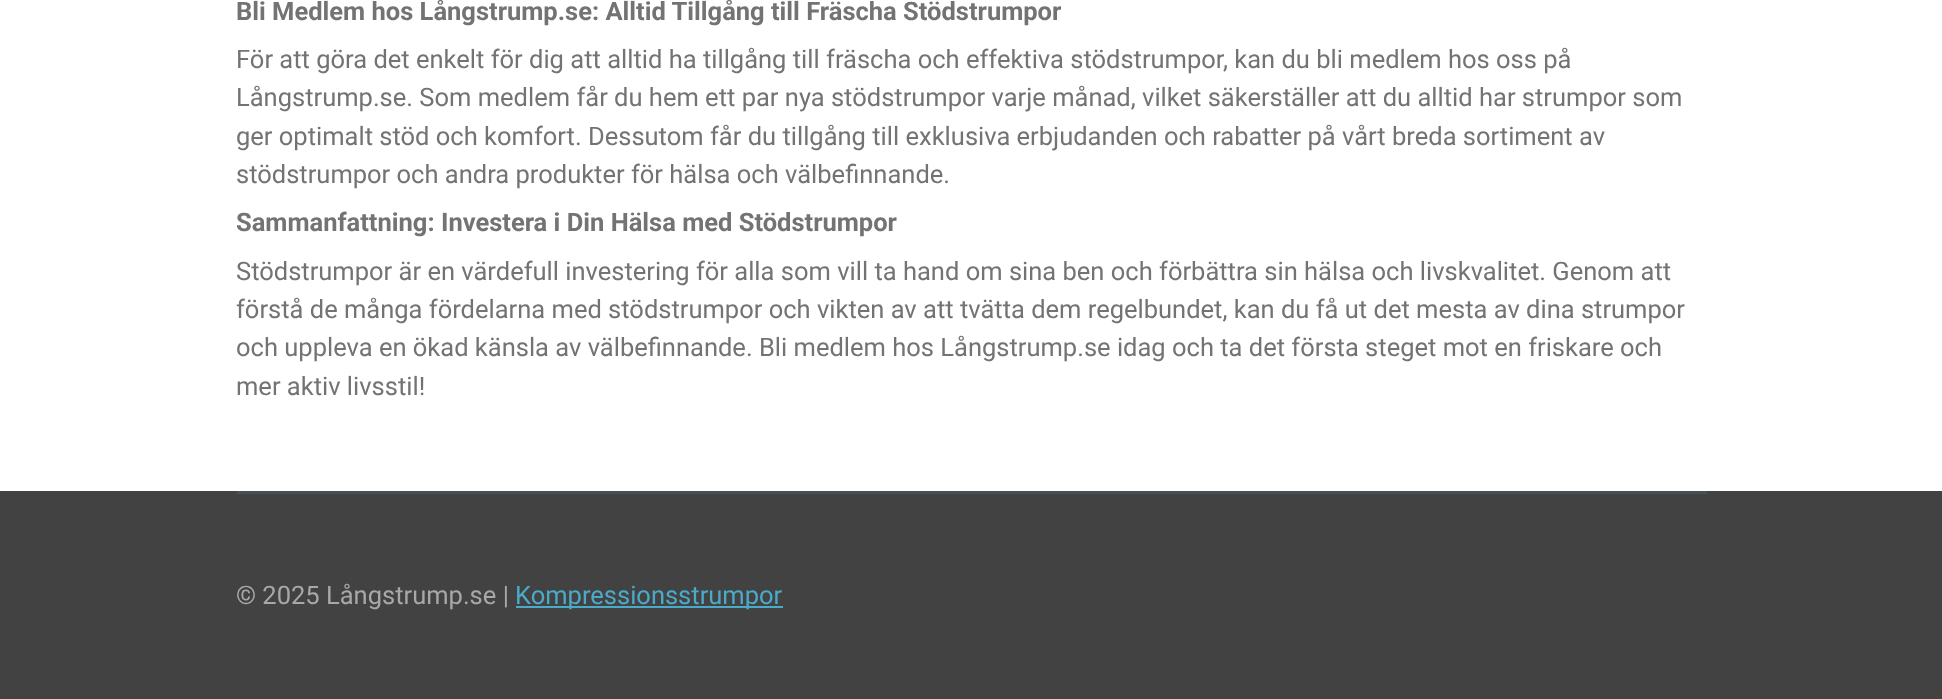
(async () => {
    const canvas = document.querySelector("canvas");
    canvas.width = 1942;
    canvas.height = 699;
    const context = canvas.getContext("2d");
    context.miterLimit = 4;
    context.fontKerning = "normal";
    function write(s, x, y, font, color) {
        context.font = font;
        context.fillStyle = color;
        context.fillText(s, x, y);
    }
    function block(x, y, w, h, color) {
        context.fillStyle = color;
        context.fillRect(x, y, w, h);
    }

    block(0, 0, 1942, 699, "rgb(255, 255, 255)");
    write("Bli Medlem hos Långstrump.se: Alltid Tillgång till Fräscha Stödstrumpor", 236, 20, "bold 25.5px Roboto", "rgb(115, 115, 115)");
    write("För att göra det enkelt för dig att alltid ha tillgång till fräscha och effektiva stödstrumpor, kan du bli medlem hos oss på", 236, 68, "25.5px Roboto", "rgb(115, 115, 115)");
    write("Långstrump.se. Som medlem får du hem ett par nya stödstrumpor varje månad, vilket säkerställer att du alltid har strumpor som", 236, 106, "25.5px Roboto", "rgb(115, 115, 115)");
    write("ger optimalt stöd och komfort. Dessutom får du tillgång till exklusiva erbjudanden och rabatter på vårt breda sortiment av", 236, 145, "25.5px Roboto", "rgb(115, 115, 115)");
    write("stödstrumpor och andra produkter för hälsa och välbefinnande.", 236, 183, "25.5px Roboto", "rgb(115, 115, 115)");
    write("Sammanfattning: Investera i Din Hälsa med Stödstrumpor", 236, 231, "bold 25.5px Roboto", "rgb(115, 115, 115)");
    write("Stödstrumpor är en värdefull investering för alla som vill ta hand om sina ben och förbättra sin hälsa och livskvalitet. Genom att", 236, 280, "25.5px Roboto", "rgb(115, 115, 115)");
    write("förstå de många fördelarna med stödstrumpor och vikten av att tvätta dem regelbundet, kan du få ut det mesta av dina strumpor", 236, 318, "25.5px Roboto", "rgb(115, 115, 115)");
    write("och uppleva en ökad känsla av välbefinnande. Bli medlem hos Långstrump.se idag och ta det första steget mot en friskare och", 236, 356, "25.5px Roboto", "rgb(115, 115, 115)");
    write("mer aktiv livsstil!", 236, 395, "25.5px Roboto", "rgb(115, 115, 115)");
    block(0, 491, 1942, 208, "rgb(66, 66, 66)");
    block(237, 491, 1470, 3, "rgb(68, 82, 86)");
    write("© 2025 Långstrump.se |", 236, 604, "25.5px Roboto", "rgb(168, 168, 168)");
    block(516, 606, 267, 2, "rgb(76, 170, 201)");
    write("Kompressionsstrumpor", 515, 604, "25.5px Roboto", "rgb(76, 170, 201)");
})();
